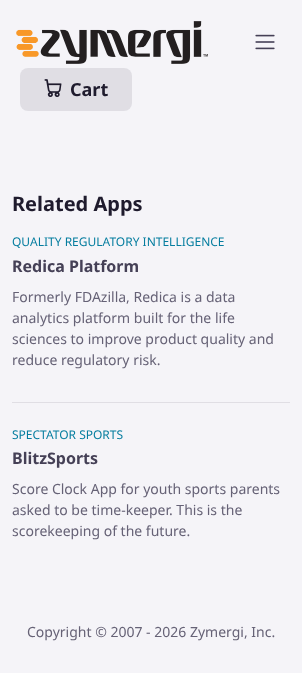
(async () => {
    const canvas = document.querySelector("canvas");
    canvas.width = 302;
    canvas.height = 673;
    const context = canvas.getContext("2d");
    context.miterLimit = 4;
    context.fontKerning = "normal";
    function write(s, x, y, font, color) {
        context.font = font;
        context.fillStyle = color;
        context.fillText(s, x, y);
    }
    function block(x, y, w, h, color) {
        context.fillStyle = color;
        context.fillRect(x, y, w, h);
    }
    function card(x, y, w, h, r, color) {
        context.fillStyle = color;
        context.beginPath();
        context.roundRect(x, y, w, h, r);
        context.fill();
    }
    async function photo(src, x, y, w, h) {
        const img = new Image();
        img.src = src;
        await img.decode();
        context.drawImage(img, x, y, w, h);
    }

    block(0, 0, 302, 673, "rgb(245, 244, 248)");
    await photo("media/1.png", 16, 21, 192, 43);
    await photo("media/2.png", 255, 34, 20, 16);
    card(20, 68, 112, 43, 8, "rgb(224, 222, 228)");
    await photo("media/3.png", 44, 79, 18, 18);
    write("Cart", 70, 96, "bold 18px Noto Sans", "rgb(31, 27, 45)");
    write("Related Apps", 12, 211, "bold 20px Noto Sans", "rgb(31, 27, 45)");
    write("QUALITY REGULATORY INTELLIGENCE", 12, 246, "12px Noto Sans", "rgb(5, 125, 159)");
    write("Redica Platform", 12, 272, "bold 16px Noto Sans", "rgb(69, 64, 86)");
    write("Formerly FDAzilla, Redica is a data", 12, 302, "14px Noto Sans", "rgb(102, 98, 118)");
    write("analytics platform built for the life", 12, 323, "14px Noto Sans", "rgb(102, 98, 118)");
    write("sciences to improve product quality and", 12, 344, "14px Noto Sans", "rgb(102, 98, 118)");
    write("reduce regulatory risk.", 12, 365, "14px Noto Sans", "rgb(102, 98, 118)");
    block(12, 402, 278, 1, "rgb(224, 222, 228)");
    write("SPECTATOR SPORTS", 12, 439, "12px Noto Sans", "rgb(5, 125, 159)");
    write("BlitzSports", 12, 464, "bold 16px Noto Sans", "rgb(69, 64, 86)");
    write("Score Clock App for youth sports parents", 12, 494, "14px Noto Sans", "rgb(102, 98, 118)");
    write("asked to be time-keeper. This is the", 12, 515, "14px Noto Sans", "rgb(102, 98, 118)");
    write("scorekeeping of the future.", 12, 536, "14px Noto Sans", "rgb(102, 98, 118)");
    write("Copyright © 2007 - 2026 Zymergi, Inc.", 27, 637, "14px Noto Sans", "rgb(102, 98, 118)");
})();
